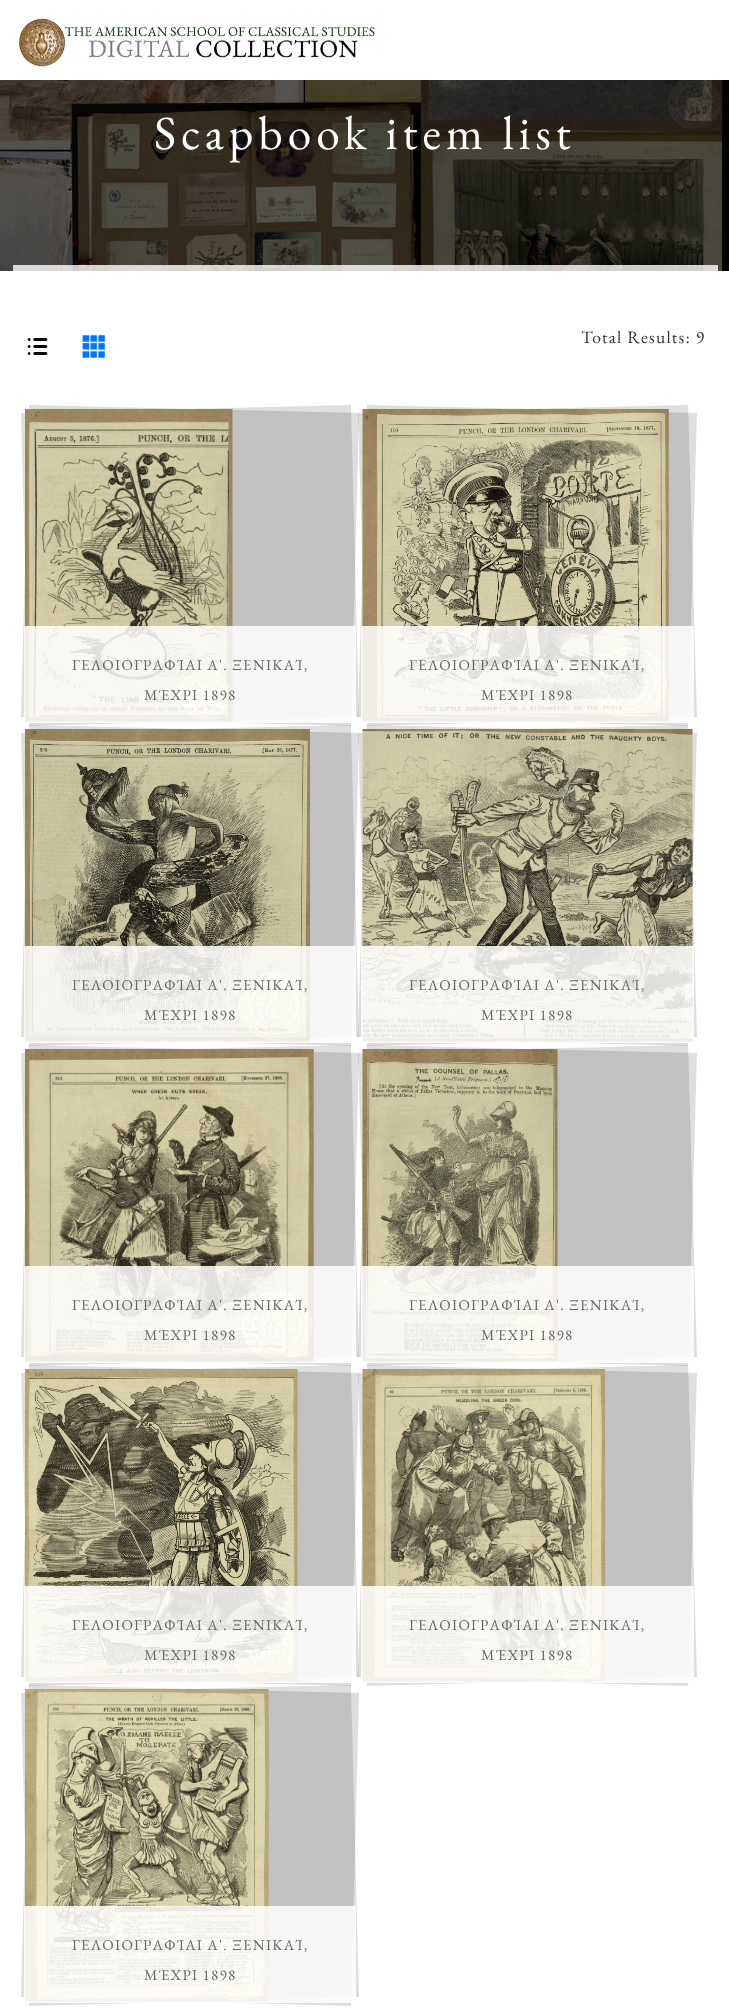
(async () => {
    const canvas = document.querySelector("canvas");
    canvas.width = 729;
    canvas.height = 2014;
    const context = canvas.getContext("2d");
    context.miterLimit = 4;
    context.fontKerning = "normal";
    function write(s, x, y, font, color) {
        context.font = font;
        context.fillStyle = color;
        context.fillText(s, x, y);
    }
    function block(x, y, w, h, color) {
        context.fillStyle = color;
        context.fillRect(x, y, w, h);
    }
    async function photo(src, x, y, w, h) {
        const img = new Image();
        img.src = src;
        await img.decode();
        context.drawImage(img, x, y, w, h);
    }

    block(0, 0, 729, 2014, "rgb(255, 255, 255)");
    await photo("media/1.png", 19, 18, 356, 49);
    await photo("media/2.png", 0, 80, 729, 191);
    context.letterSpacing = "5px";
    write("Scapbook item list", 154, 149, "47.5px EB Garamond", "rgb(255, 255, 255)");
    block(13, 265, 705, 6, "rgba(255, 255, 255, 0.8)");
    await photo("media/3.png", 27, 338, 21, 17);
    await photo("media/4.png", 82, 335, 23, 23);
    context.letterSpacing = "1.25px";
    write("Total Results: 9", 581, 343, "17.5px EB Garamond", "rgb(51, 51, 51)");
    context.fillStyle = "rgb(222, 222, 222)";
    context.beginPath();
    context.moveTo(29, 405);
    context.lineTo(359, 413);
    context.lineTo(351, 726);
    context.lineTo(21, 717);
    context.closePath();
    context.fill();
    context.fillStyle = "rgba(0, 0, 0, 0.13)";
    context.beginPath();
    context.moveTo(21, 413);
    context.lineTo(351, 405);
    context.lineTo(359, 717);
    context.lineTo(29, 726);
    context.closePath();
    context.fill();
    await photo("media/5.png", 25, 409, 208, 313);
    block(24, 626, 332, 97, "rgba(255, 255, 255, 0.85)");
    write("ΓΕΛΟΙΟΓΡΑΦΊΑΙ Α'. ΞΕΝΙΚΑΊ,", 72, 670, "15px EB Garamond", "rgb(102, 102, 102)");
    write("ΜΈΧΡΙ 1898", 144, 700, "15px EB Garamond", "rgb(102, 102, 102)");
    context.fillStyle = "rgba(0, 0, 0, 0.13)";
    context.beginPath();
    context.moveTo(367, 405);
    context.lineTo(697, 413);
    context.lineTo(688, 726);
    context.lineTo(358, 717);
    context.closePath();
    context.fill();
    context.beginPath();
    context.moveTo(358, 413);
    context.lineTo(688, 405);
    context.lineTo(697, 717);
    context.lineTo(367, 726);
    context.closePath();
    context.fill();
    await photo("media/6.png", 362, 409, 307, 313);
    block(361, 626, 333, 97, "rgba(255, 255, 255, 0.85)");
    write("ΓΕΛΟΙΟΓΡΑΦΊΑΙ Α'. ΞΕΝΙΚΑΊ,", 409, 670, "15px EB Garamond", "rgb(102, 102, 102)");
    write("ΜΈΧΡΙ 1898", 481, 700, "15px EB Garamond", "rgb(102, 102, 102)");
    context.fillStyle = "rgba(0, 0, 0, 0.13)";
    context.beginPath();
    context.moveTo(29, 725);
    context.lineTo(359, 733);
    context.lineTo(351, 1046);
    context.lineTo(21, 1037);
    context.closePath();
    context.fill();
    context.beginPath();
    context.moveTo(21, 733);
    context.lineTo(351, 725);
    context.lineTo(359, 1037);
    context.lineTo(29, 1046);
    context.closePath();
    context.fill();
    await photo("media/7.png", 25, 729, 285, 313);
    block(24, 946, 332, 97, "rgba(255, 255, 255, 0.85)");
    write("ΓΕΛΟΙΟΓΡΑΦΊΑΙ Α'. ΞΕΝΙΚΑΊ,", 72, 990, "15px EB Garamond", "rgb(102, 102, 102)");
    write("ΜΈΧΡΙ 1898", 144, 1020, "15px EB Garamond", "rgb(102, 102, 102)");
    context.fillStyle = "rgba(0, 0, 0, 0.13)";
    context.beginPath();
    context.moveTo(367, 725);
    context.lineTo(697, 733);
    context.lineTo(688, 1046);
    context.lineTo(358, 1037);
    context.closePath();
    context.fill();
    context.beginPath();
    context.moveTo(358, 733);
    context.lineTo(688, 725);
    context.lineTo(697, 1037);
    context.lineTo(367, 1046);
    context.closePath();
    context.fill();
    await photo("media/8.png", 362, 729, 331, 313);
    block(361, 946, 333, 97, "rgba(255, 255, 255, 0.85)");
    write("ΓΕΛΟΙΟΓΡΑΦΊΑΙ Α'. ΞΕΝΙΚΑΊ,", 409, 990, "15px EB Garamond", "rgb(102, 102, 102)");
    write("ΜΈΧΡΙ 1898", 481, 1020, "15px EB Garamond", "rgb(102, 102, 102)");
    context.fillStyle = "rgba(0, 0, 0, 0.13)";
    context.beginPath();
    context.moveTo(29, 1045);
    context.lineTo(359, 1053);
    context.lineTo(351, 1366);
    context.lineTo(21, 1357);
    context.closePath();
    context.fill();
    context.beginPath();
    context.moveTo(21, 1053);
    context.lineTo(351, 1045);
    context.lineTo(359, 1357);
    context.lineTo(29, 1366);
    context.closePath();
    context.fill();
    await photo("media/9.png", 25, 1049, 289, 313);
    block(24, 1266, 332, 97, "rgba(255, 255, 255, 0.85)");
    write("ΓΕΛΟΙΟΓΡΑΦΊΑΙ Α'. ΞΕΝΙΚΑΊ,", 72, 1310, "15px EB Garamond", "rgb(102, 102, 102)");
    write("ΜΈΧΡΙ 1898", 144, 1340, "15px EB Garamond", "rgb(102, 102, 102)");
    context.fillStyle = "rgba(0, 0, 0, 0.13)";
    context.beginPath();
    context.moveTo(367, 1045);
    context.lineTo(697, 1053);
    context.lineTo(688, 1366);
    context.lineTo(358, 1357);
    context.closePath();
    context.fill();
    context.beginPath();
    context.moveTo(358, 1053);
    context.lineTo(688, 1045);
    context.lineTo(697, 1357);
    context.lineTo(367, 1366);
    context.closePath();
    context.fill();
    await photo("media/10.png", 362, 1049, 196, 313);
    block(361, 1266, 333, 97, "rgba(255, 255, 255, 0.85)");
    write("ΓΕΛΟΙΟΓΡΑΦΊΑΙ Α'. ΞΕΝΙΚΑΊ,", 409, 1310, "15px EB Garamond", "rgb(102, 102, 102)");
    write("ΜΈΧΡΙ 1898", 481, 1340, "15px EB Garamond", "rgb(102, 102, 102)");
    context.fillStyle = "rgba(0, 0, 0, 0.13)";
    context.beginPath();
    context.moveTo(29, 1365);
    context.lineTo(359, 1373);
    context.lineTo(351, 1686);
    context.lineTo(21, 1677);
    context.closePath();
    context.fill();
    context.beginPath();
    context.moveTo(21, 1373);
    context.lineTo(351, 1365);
    context.lineTo(359, 1677);
    context.lineTo(29, 1686);
    context.closePath();
    context.fill();
    await photo("media/11.png", 25, 1369, 273, 313);
    block(24, 1586, 332, 97, "rgba(255, 255, 255, 0.85)");
    write("ΓΕΛΟΙΟΓΡΑΦΊΑΙ Α'. ΞΕΝΙΚΑΊ,", 72, 1630, "15px EB Garamond", "rgb(102, 102, 102)");
    write("ΜΈΧΡΙ 1898", 144, 1660, "15px EB Garamond", "rgb(102, 102, 102)");
    context.fillStyle = "rgba(0, 0, 0, 0.13)";
    context.beginPath();
    context.moveTo(367, 1365);
    context.lineTo(697, 1373);
    context.lineTo(688, 1686);
    context.lineTo(358, 1677);
    context.closePath();
    context.fill();
    context.beginPath();
    context.moveTo(358, 1373);
    context.lineTo(688, 1365);
    context.lineTo(697, 1677);
    context.lineTo(367, 1686);
    context.closePath();
    context.fill();
    await photo("media/12.png", 362, 1369, 243, 313);
    block(361, 1586, 333, 97, "rgba(255, 255, 255, 0.85)");
    write("ΓΕΛΟΙΟΓΡΑΦΊΑΙ Α'. ΞΕΝΙΚΑΊ,", 409, 1630, "15px EB Garamond", "rgb(102, 102, 102)");
    write("ΜΈΧΡΙ 1898", 481, 1660, "15px EB Garamond", "rgb(102, 102, 102)");
    context.fillStyle = "rgba(0, 0, 0, 0.13)";
    context.beginPath();
    context.moveTo(29, 1685);
    context.lineTo(359, 1693);
    context.lineTo(351, 2006);
    context.lineTo(21, 1997);
    context.closePath();
    context.fill();
    context.beginPath();
    context.moveTo(21, 1693);
    context.lineTo(351, 1685);
    context.lineTo(359, 1997);
    context.lineTo(29, 2006);
    context.closePath();
    context.fill();
    await photo("media/13.png", 25, 1689, 244, 313);
    block(24, 1906, 332, 97, "rgba(255, 255, 255, 0.85)");
    write("ΓΕΛΟΙΟΓΡΑΦΊΑΙ Α'. ΞΕΝΙΚΑΊ,", 72, 1950, "15px EB Garamond", "rgb(102, 102, 102)");
    write("ΜΈΧΡΙ 1898", 144, 1980, "15px EB Garamond", "rgb(102, 102, 102)");
})();
